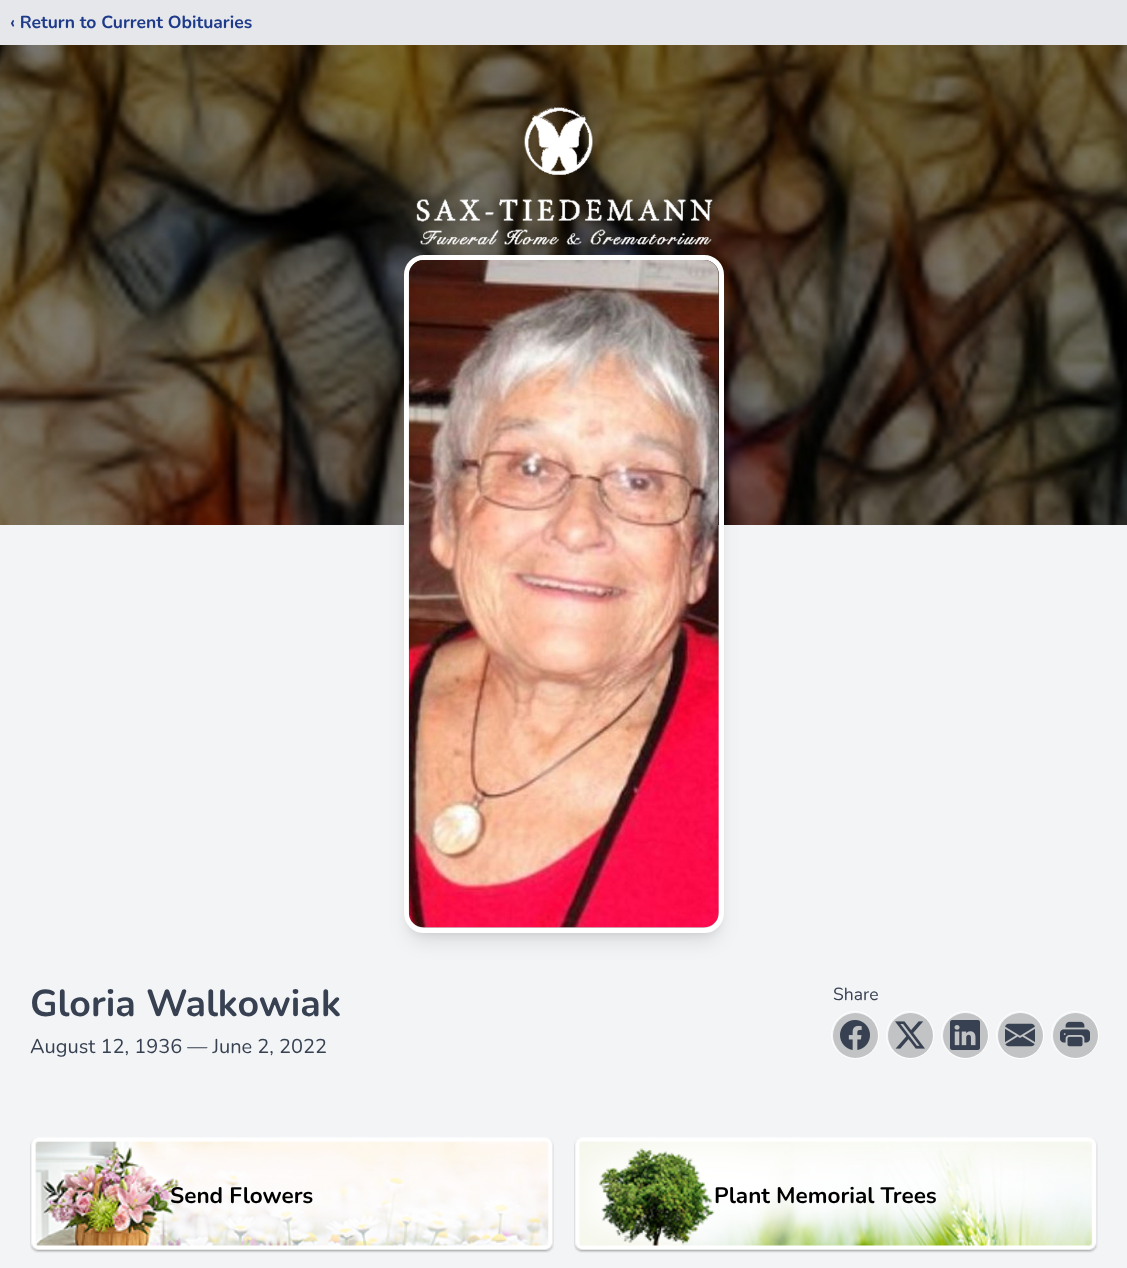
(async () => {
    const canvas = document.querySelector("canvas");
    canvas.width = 1127;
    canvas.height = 1268;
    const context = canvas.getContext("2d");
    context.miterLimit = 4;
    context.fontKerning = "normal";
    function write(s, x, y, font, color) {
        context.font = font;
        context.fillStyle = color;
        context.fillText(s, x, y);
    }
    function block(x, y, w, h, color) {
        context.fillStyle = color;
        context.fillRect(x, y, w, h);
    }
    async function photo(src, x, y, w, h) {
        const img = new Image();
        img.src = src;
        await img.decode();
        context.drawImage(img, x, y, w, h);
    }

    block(0, 0, 1127, 1268, "rgb(243, 244, 246)");
    block(0, 0, 1127, 45, "rgb(229, 231, 235)");
    write("‹ Return to Current Obituaries", 10, 28, "bold 17.5px Nunito", "rgb(30, 58, 138)");
    await photo("media/1.png", 0, 45, 1127, 480);
    await photo("media/2.png", 416, 107, 297, 138);
    context.fillStyle = "rgba(0, 0, 0, 0.1)";
    context.filter = "blur(4px)";
    context.beginPath();
    context.roundRect(409, 265, 310, 668, 15);
    context.fill();
    context.filter = "none";
    context.filter = "blur(9.5px)";
    context.beginPath();
    context.roundRect(408, 271, 312, 670, 16);
    context.fill();
    context.filter = "none";
    context.beginPath();
    context.roundRect(406.5, 257.5, 315, 673, 17.5);
    context.strokeStyle = "rgb(255, 255, 255)";
    context.lineWidth = 5;
    context.stroke();
    await photo("media/3.png", 408, 260, 311, 668);
    write("Gloria Walkowiak", 30, 1016, "bold 37.5px Nunito", "rgb(55, 65, 81)");
    write("August 12, 1936 — June 2, 2022", 30, 1053, "20px Nunito", "rgb(55, 65, 81)");
    write("Share", 833, 1000, "17.5px Nunito", "rgb(55, 65, 81)");
    context.beginPath();
    context.arc(855, 1035, 23.5, 0, Math.PI * 2);
    context.lineWidth = 1;
    context.stroke();
    context.fillStyle = "rgba(0, 0, 0, 0.2)";
    context.beginPath();
    context.arc(855.5, 1035.5, 22.5, 0, Math.PI * 2);
    context.fill();
    await photo("media/4.png", 840, 1020, 30, 30);
    context.beginPath();
    context.arc(910, 1035, 23.5, 0, Math.PI * 2);
    context.stroke();
    context.beginPath();
    context.arc(910.5, 1035.5, 22.5, 0, Math.PI * 2);
    context.fill();
    await photo("media/5.png", 895, 1021, 30, 28);
    context.beginPath();
    context.arc(965, 1035, 23.5, 0, Math.PI * 2);
    context.stroke();
    context.beginPath();
    context.arc(965.5, 1035.5, 22.5, 0, Math.PI * 2);
    context.fill();
    await photo("media/6.png", 950, 1020, 30, 30);
    context.beginPath();
    context.arc(1020, 1035, 23.5, 0, Math.PI * 2);
    context.stroke();
    context.beginPath();
    context.arc(1020.5, 1035.5, 22.5, 0, Math.PI * 2);
    context.fill();
    await photo("media/7.png", 1005, 1023, 30, 24);
    context.beginPath();
    context.arc(1075, 1035, 23.5, 0, Math.PI * 2);
    context.stroke();
    context.beginPath();
    context.arc(1075.5, 1035.5, 22.5, 0, Math.PI * 2);
    context.fill();
    await photo("media/8.png", 1060, 1021, 30, 26);
    await photo("media/9.png", 30, 1137, 524, 116);
    write("Send Flowers", 170, 1203, "bold 22.5px Nunito", "rgb(0, 0, 0)");
    await photo("media/10.png", 574, 1137, 524, 116);
    write("Plant Memorial Trees", 714, 1203, "bold 22.5px Nunito", "rgb(0, 0, 0)");
})();
